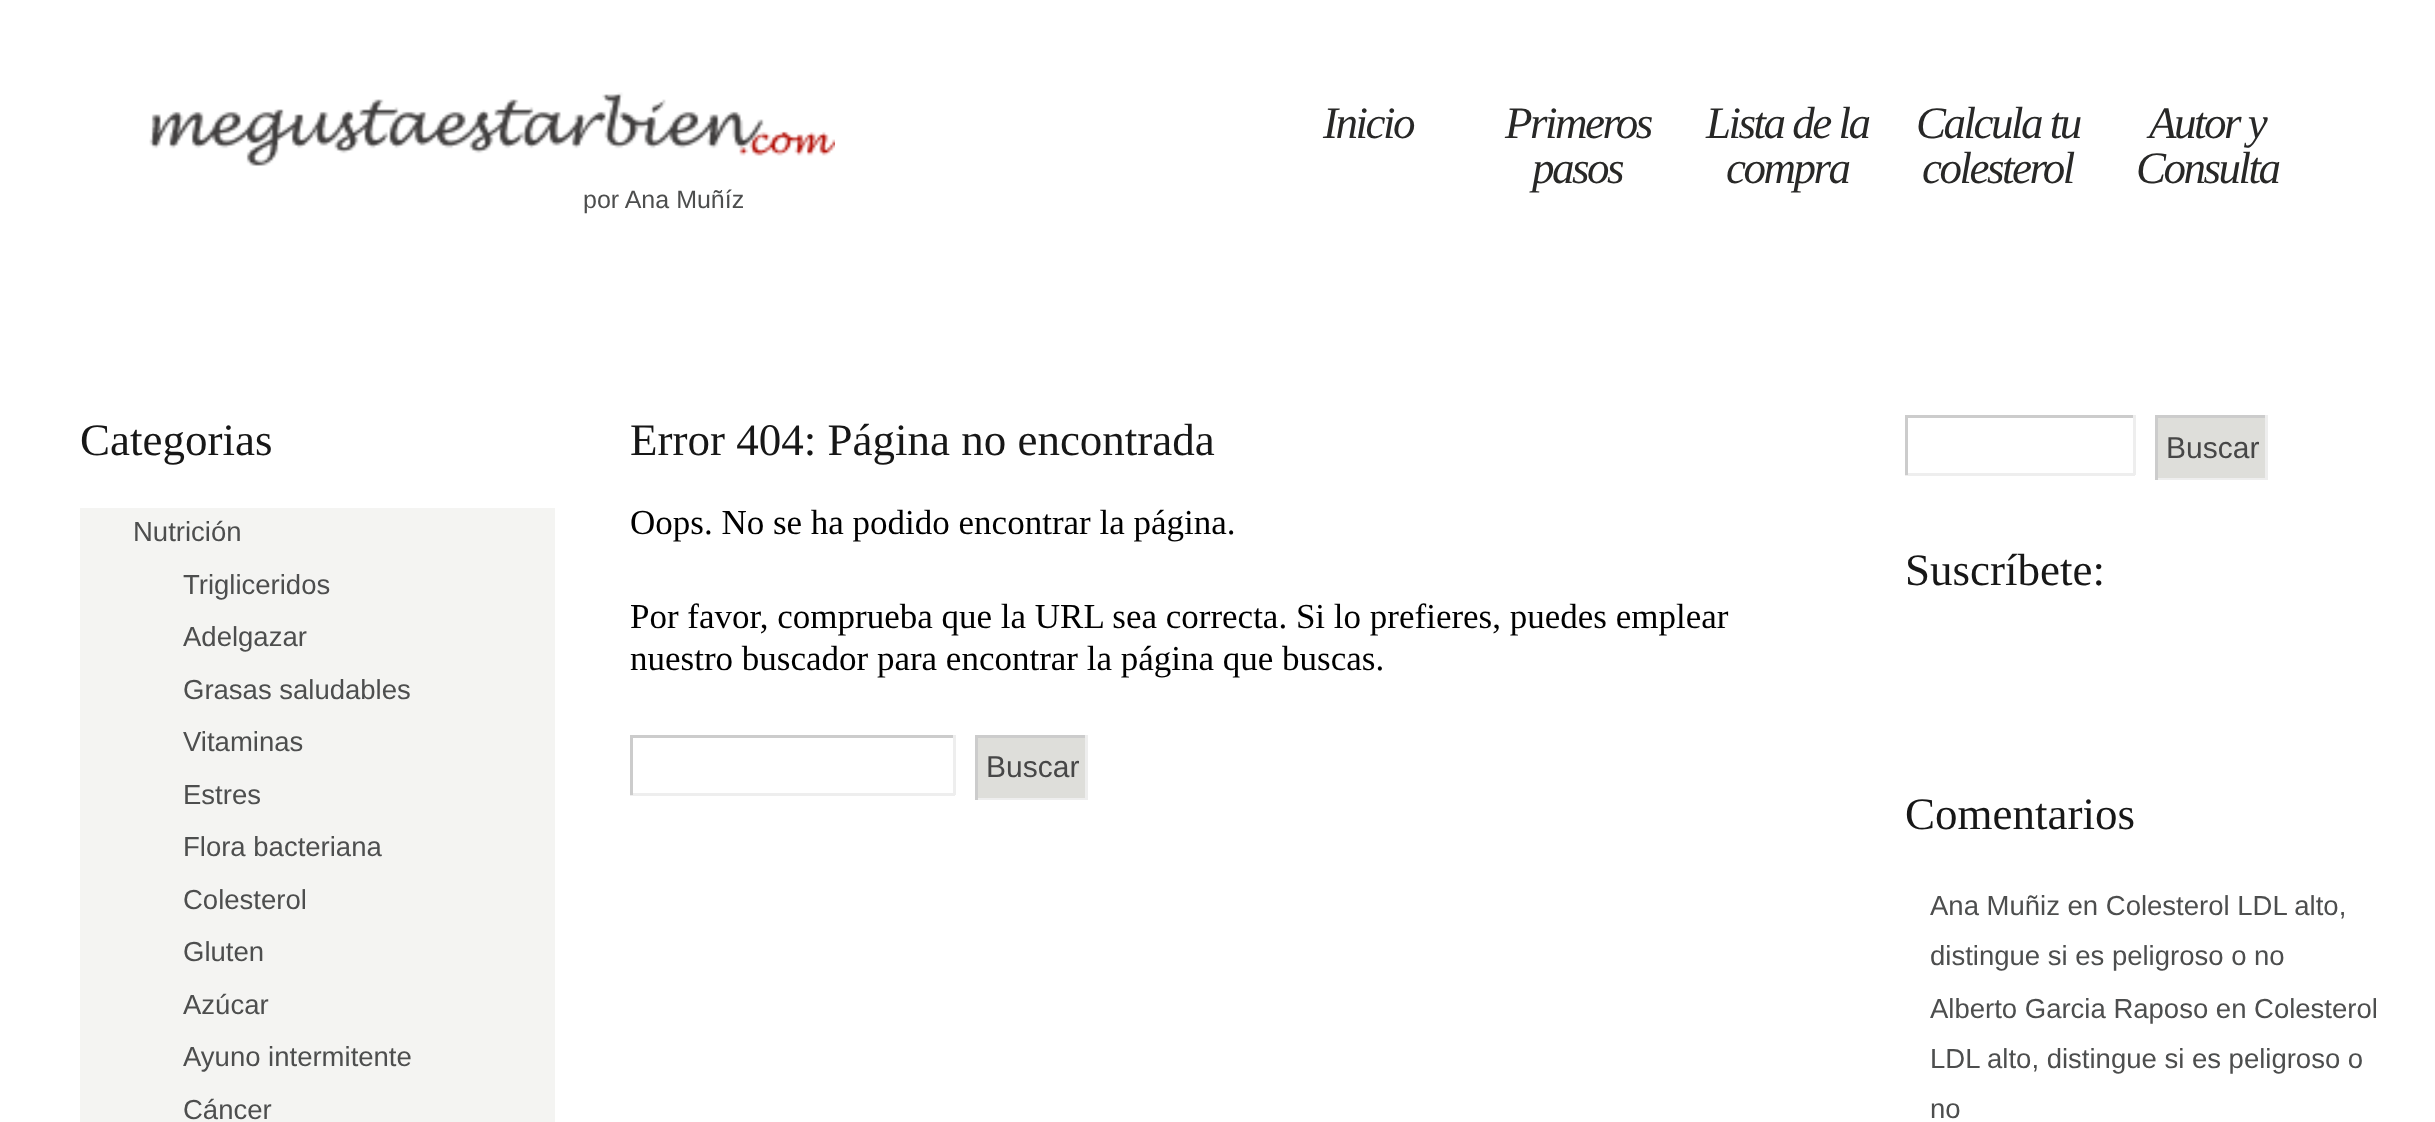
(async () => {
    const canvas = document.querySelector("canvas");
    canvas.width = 2435;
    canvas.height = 1122;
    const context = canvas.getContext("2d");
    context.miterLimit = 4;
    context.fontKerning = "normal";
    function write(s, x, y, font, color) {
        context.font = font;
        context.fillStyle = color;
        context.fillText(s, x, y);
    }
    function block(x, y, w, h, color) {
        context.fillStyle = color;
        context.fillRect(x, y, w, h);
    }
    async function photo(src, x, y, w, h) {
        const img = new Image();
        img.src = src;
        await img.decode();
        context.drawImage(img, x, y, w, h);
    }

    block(0, 0, 2435, 1122, "rgb(255, 255, 255)");
    context.letterSpacing = "-2.5px";
    write("Inicio", 1323, 138, "italic 45px Liberation Serif", "rgb(40, 40, 39)");
    write("Primeros", 1505, 138, "italic 45px Liberation Serif", "rgb(40, 40, 39)");
    write("pasos", 1532, 183, "italic 45px Liberation Serif", "rgb(40, 40, 39)");
    write("Lista de la", 1706, 138, "italic 45px Liberation Serif", "rgb(40, 40, 39)");
    write("compra", 1726, 183, "italic 45px Liberation Serif", "rgb(40, 40, 39)");
    write("Calcula tu", 1916, 138, "italic 45px Liberation Serif", "rgb(40, 40, 39)");
    write("colesterol", 1922, 183, "italic 45px Liberation Serif", "rgb(40, 40, 39)");
    write("Autor y", 2149, 138, "italic 45px Liberation Serif", "rgb(40, 40, 39)");
    write("Consulta", 2136, 183, "italic 45px Liberation Serif", "rgb(40, 40, 39)");
    await photo("media/1.png", 149, 92, 686, 74);
    context.letterSpacing = "0px";
    write("por Ana Muñíz", 583, 208, "25px Liberation Sans", "rgb(77, 78, 78)");
    write("Categorias", 80, 455, "45px Liberation Serif", "rgb(23, 23, 23)");
    block(80, 508, 475, 614, "rgb(244, 244, 242)");
    write("Nutrición", 133, 541, "27.5px Liberation Sans", "rgb(77, 78, 78)");
    write("Trigliceridos", 183, 594, "27.5px Liberation Sans", "rgb(77, 78, 78)");
    write("Adelgazar", 183, 646, "27.5px Liberation Sans", "rgb(77, 78, 78)");
    write("Grasas saludables", 183, 699, "27.5px Liberation Sans", "rgb(77, 78, 78)");
    write("Vitaminas", 183, 751, "27.5px Liberation Sans", "rgb(77, 78, 78)");
    write("Estres", 183, 804, "27.5px Liberation Sans", "rgb(77, 78, 78)");
    write("Flora bacteriana", 183, 856, "27.5px Liberation Sans", "rgb(77, 78, 78)");
    write("Colesterol", 183, 909, "27.5px Liberation Sans", "rgb(77, 78, 78)");
    write("Gluten", 183, 961, "27.5px Liberation Sans", "rgb(77, 78, 78)");
    write("Azúcar", 183, 1014, "27.5px Liberation Sans", "rgb(77, 78, 78)");
    write("Ayuno intermitente", 183, 1066, "27.5px Liberation Sans", "rgb(77, 78, 78)");
    write("Cáncer", 183, 1119, "27.5px Liberation Sans", "rgb(77, 78, 78)");
    write("Error 404: Página no encontrada", 630, 455, "45px Liberation Serif", "rgb(23, 23, 23)");
    write("Oops. No se ha podido encontrar la página.", 630, 534, "35px Liberation Serif", "rgb(0, 0, 0)");
    write("Por favor, comprueba que la URL sea correcta. Si lo prefieres, puedes emplear", 630, 628, "35px Liberation Serif", "rgb(0, 0, 0)");
    write("nuestro buscador para encontrar la página que buscas.", 630, 670, "35px Liberation Serif", "rgb(0, 0, 0)");
    block(630, 735, 325, 3, "rgb(204, 204, 204)");
    block(953, 735, 3, 60, "rgb(238, 238, 238)");
    block(630, 793, 325, 3, "rgb(238, 238, 238)");
    block(630, 735, 3, 60, "rgb(204, 204, 204)");
    block(978, 738, 107, 60, "rgb(222, 222, 218)");
    block(975, 735, 113, 3, "rgb(204, 204, 204)");
    block(1085, 735, 3, 65, "rgb(238, 238, 238)");
    block(975, 798, 113, 2, "rgb(238, 238, 238)");
    block(975, 735, 3, 65, "rgb(204, 204, 204)");
    write("Buscar", 986, 777, "30px Liberation Sans", "rgb(71, 71, 71)");
    block(1905, 415, 230, 3, "rgb(204, 204, 204)");
    block(2133, 415, 3, 60, "rgb(238, 238, 238)");
    block(1905, 473, 230, 3, "rgb(238, 238, 238)");
    block(1905, 415, 3, 60, "rgb(204, 204, 204)");
    block(2158, 418, 107, 60, "rgb(222, 222, 218)");
    block(2155, 415, 113, 3, "rgb(204, 204, 204)");
    block(2265, 415, 3, 65, "rgb(238, 238, 238)");
    block(2155, 478, 113, 2, "rgb(238, 238, 238)");
    block(2155, 415, 3, 65, "rgb(204, 204, 204)");
    write("Buscar", 2166, 458, "30px Liberation Sans", "rgb(71, 71, 71)");
    write("Suscríbete:", 1905, 585, "45px Liberation Serif", "rgb(23, 23, 23)");
    write("Comentarios", 1905, 829, "45px Liberation Serif", "rgb(23, 23, 23)");
    write("Ana Muñiz en Colesterol LDL alto,", 1930, 915, "27.5px Liberation Sans", "rgb(77, 78, 78)");
    write("distingue si es peligroso o no", 1930, 965, "27.5px Liberation Sans", "rgb(77, 78, 78)");
    write("Alberto Garcia Raposo en Colesterol", 1930, 1018, "27.5px Liberation Sans", "rgb(77, 78, 78)");
    write("LDL alto, distingue si es peligroso o", 1930, 1068, "27.5px Liberation Sans", "rgb(77, 78, 78)");
    write("no", 1930, 1118, "27.5px Liberation Sans", "rgb(77, 78, 78)");
})();
